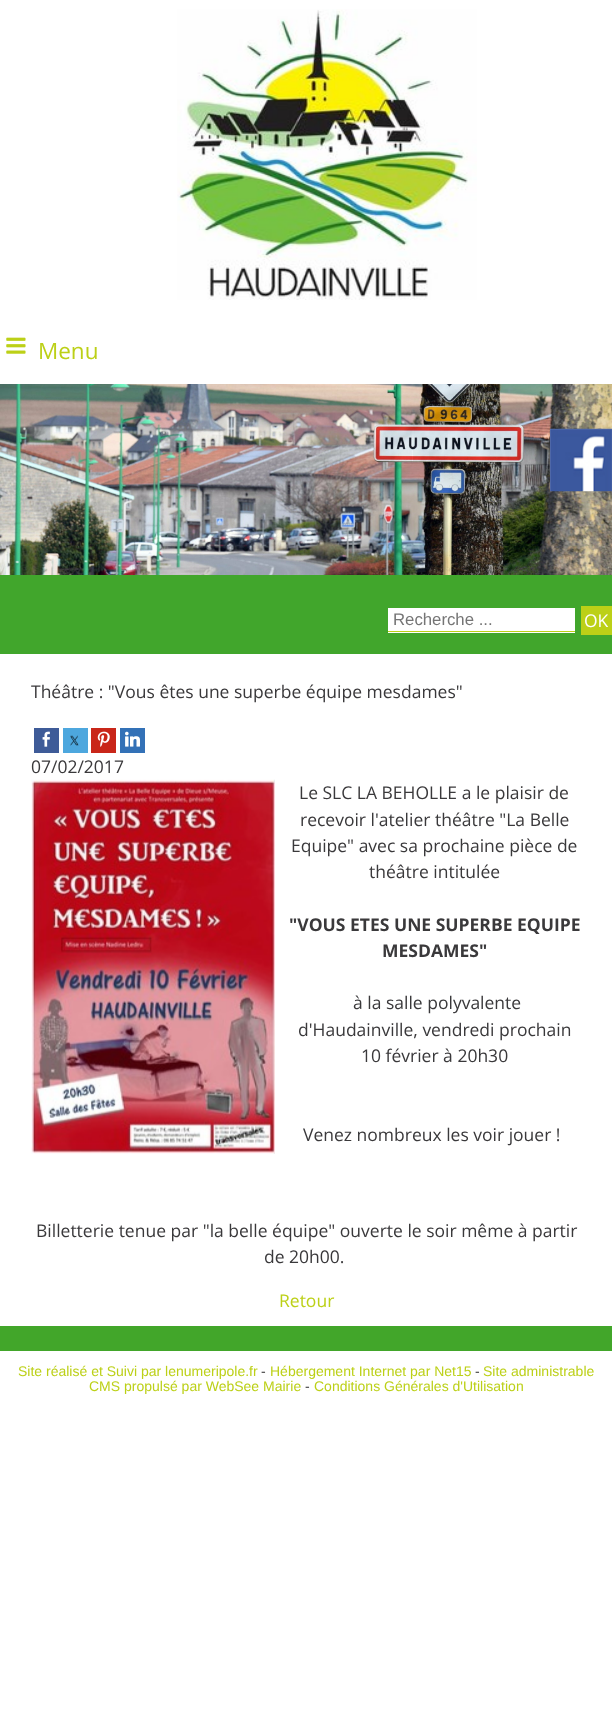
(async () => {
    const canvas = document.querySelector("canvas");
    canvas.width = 612;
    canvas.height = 1716;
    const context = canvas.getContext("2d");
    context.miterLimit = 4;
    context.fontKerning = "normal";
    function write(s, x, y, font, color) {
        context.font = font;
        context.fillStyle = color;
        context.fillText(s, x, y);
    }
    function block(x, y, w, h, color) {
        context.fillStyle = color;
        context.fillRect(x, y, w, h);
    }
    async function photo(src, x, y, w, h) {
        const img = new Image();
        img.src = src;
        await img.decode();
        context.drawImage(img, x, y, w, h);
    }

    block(0, 0, 612, 1716, "rgb(255, 255, 255)");
    await photo("media/1.png", 177, 9, 300, 291);
    await photo("media/2.png", 6, 337, 20, 17);
    write("Menu", 38, 359, "22.5px Open Sans", "rgb(188, 208, 23)");
    await photo("media/3.png", 0, 384, 612, 191);
    await photo("media/4.png", 550, 428, 62, 64);
    block(0, 575, 612, 79, "rgb(65, 166, 44)");
    block(388, 608, 187, 25, "rgb(255, 255, 255)");
    block(388, 631, 187, 1, "rgb(188, 208, 23)");
    write("Recherche ...", 393, 625, "16.75px Liberation Sans", "rgb(117, 117, 117)");
    block(581, 606, 31, 29, "rgb(188, 208, 23)");
    write("OK", 584, 627, "17.5px Open Sans", "rgb(255, 255, 255)");
    write("Théâtre : \"Vous êtes une superbe équipe mesdames\"", 31, 698, "17.5px Open Sans", "rgb(58, 57, 59)");
    block(34, 728, 25, 25, "rgb(62, 91, 152)");
    await photo("media/5.png", 42, 731, 8, 16);
    block(63, 728, 25, 25, "rgb(77, 167, 222)");
    await photo("media/6.png", 70, 735, 9, 11);
    block(91, 728, 25, 25, "rgb(201, 38, 25)");
    await photo("media/7.png", 97, 731, 13, 16);
    block(120, 728, 25, 25, "rgb(51, 113, 183)");
    await photo("media/8.png", 125, 731, 15, 16);
    write("07/02/2017", 31, 773, "17.5px Open Sans", "rgb(58, 57, 59)");
    await photo("media/9.png", 31, 779, 244, 375);
    write("Le SLC LA BEHOLLE a le plaisir de", 299, 799, "17.5px Open Sans", "rgb(58, 57, 59)");
    write("recevoir l'atelier théâtre \"La Belle", 300, 826, "17.5px Open Sans", "rgb(58, 57, 59)");
    write("Equipe\" avec sa prochaine pièce de", 291, 852, "17.5px Open Sans", "rgb(58, 57, 59)");
    write("théâtre intitulée", 369, 878, "17.5px Open Sans", "rgb(58, 57, 59)");
    write("\"VOUS ETES UNE SUPERBE EQUIPE", 289, 931, "bold 17.5px Open Sans", "rgb(58, 57, 59)");
    write("MESDAMES\"", 382, 957, "bold 17.5px Open Sans", "rgb(58, 57, 59)");
    write("à la salle polyvalente", 353, 1009, "17.5px Open Sans", "rgb(58, 57, 59)");
    write("d'Haudainville, vendredi prochain", 298, 1036, "17.5px Open Sans", "rgb(58, 57, 59)");
    write("10 février à 20h30", 361, 1062, "17.5px Open Sans", "rgb(58, 57, 59)");
    write("Venez nombreux les voir jouer !", 303, 1141, "17.5px Open Sans", "rgb(58, 57, 59)");
    write("Billetterie tenue par \"la belle équipe\" ouverte le soir même à partir", 36, 1237, "17.5px Open Sans", "rgb(58, 57, 59)");
    write("de 20h00.", 264, 1263, "17.5px Open Sans", "rgb(58, 57, 59)");
    write("Retour", 279, 1307, "17.5px Open Sans", "rgb(188, 208, 23)");
    block(0, 1326, 612, 25, "rgb(66, 166, 42)");
    write("Site réalisé et Suivi par lenumeripole.fr", 18, 1376, "14px Liberation Sans", "rgb(188, 208, 23)");
    write("-", 261, 1376, "14px Liberation Sans", "rgb(58, 57, 59)");
    write("Hébergement Internet par Net15", 270, 1376, "14px Liberation Sans", "rgb(188, 208, 23)");
    write("-", 475, 1376, "14px Liberation Sans", "rgb(58, 57, 59)");
    write("Site administrable", 483, 1376, "14px Liberation Sans", "rgb(188, 208, 23)");
    write("CMS propulsé par WebSee Mairie", 89, 1391, "14px Liberation Sans", "rgb(188, 208, 23)");
    write("-", 305, 1391, "14px Liberation Sans", "rgb(58, 57, 59)");
    write("Conditions Générales d'Utilisation", 314, 1391, "14px Liberation Sans", "rgb(188, 208, 23)");
})();
